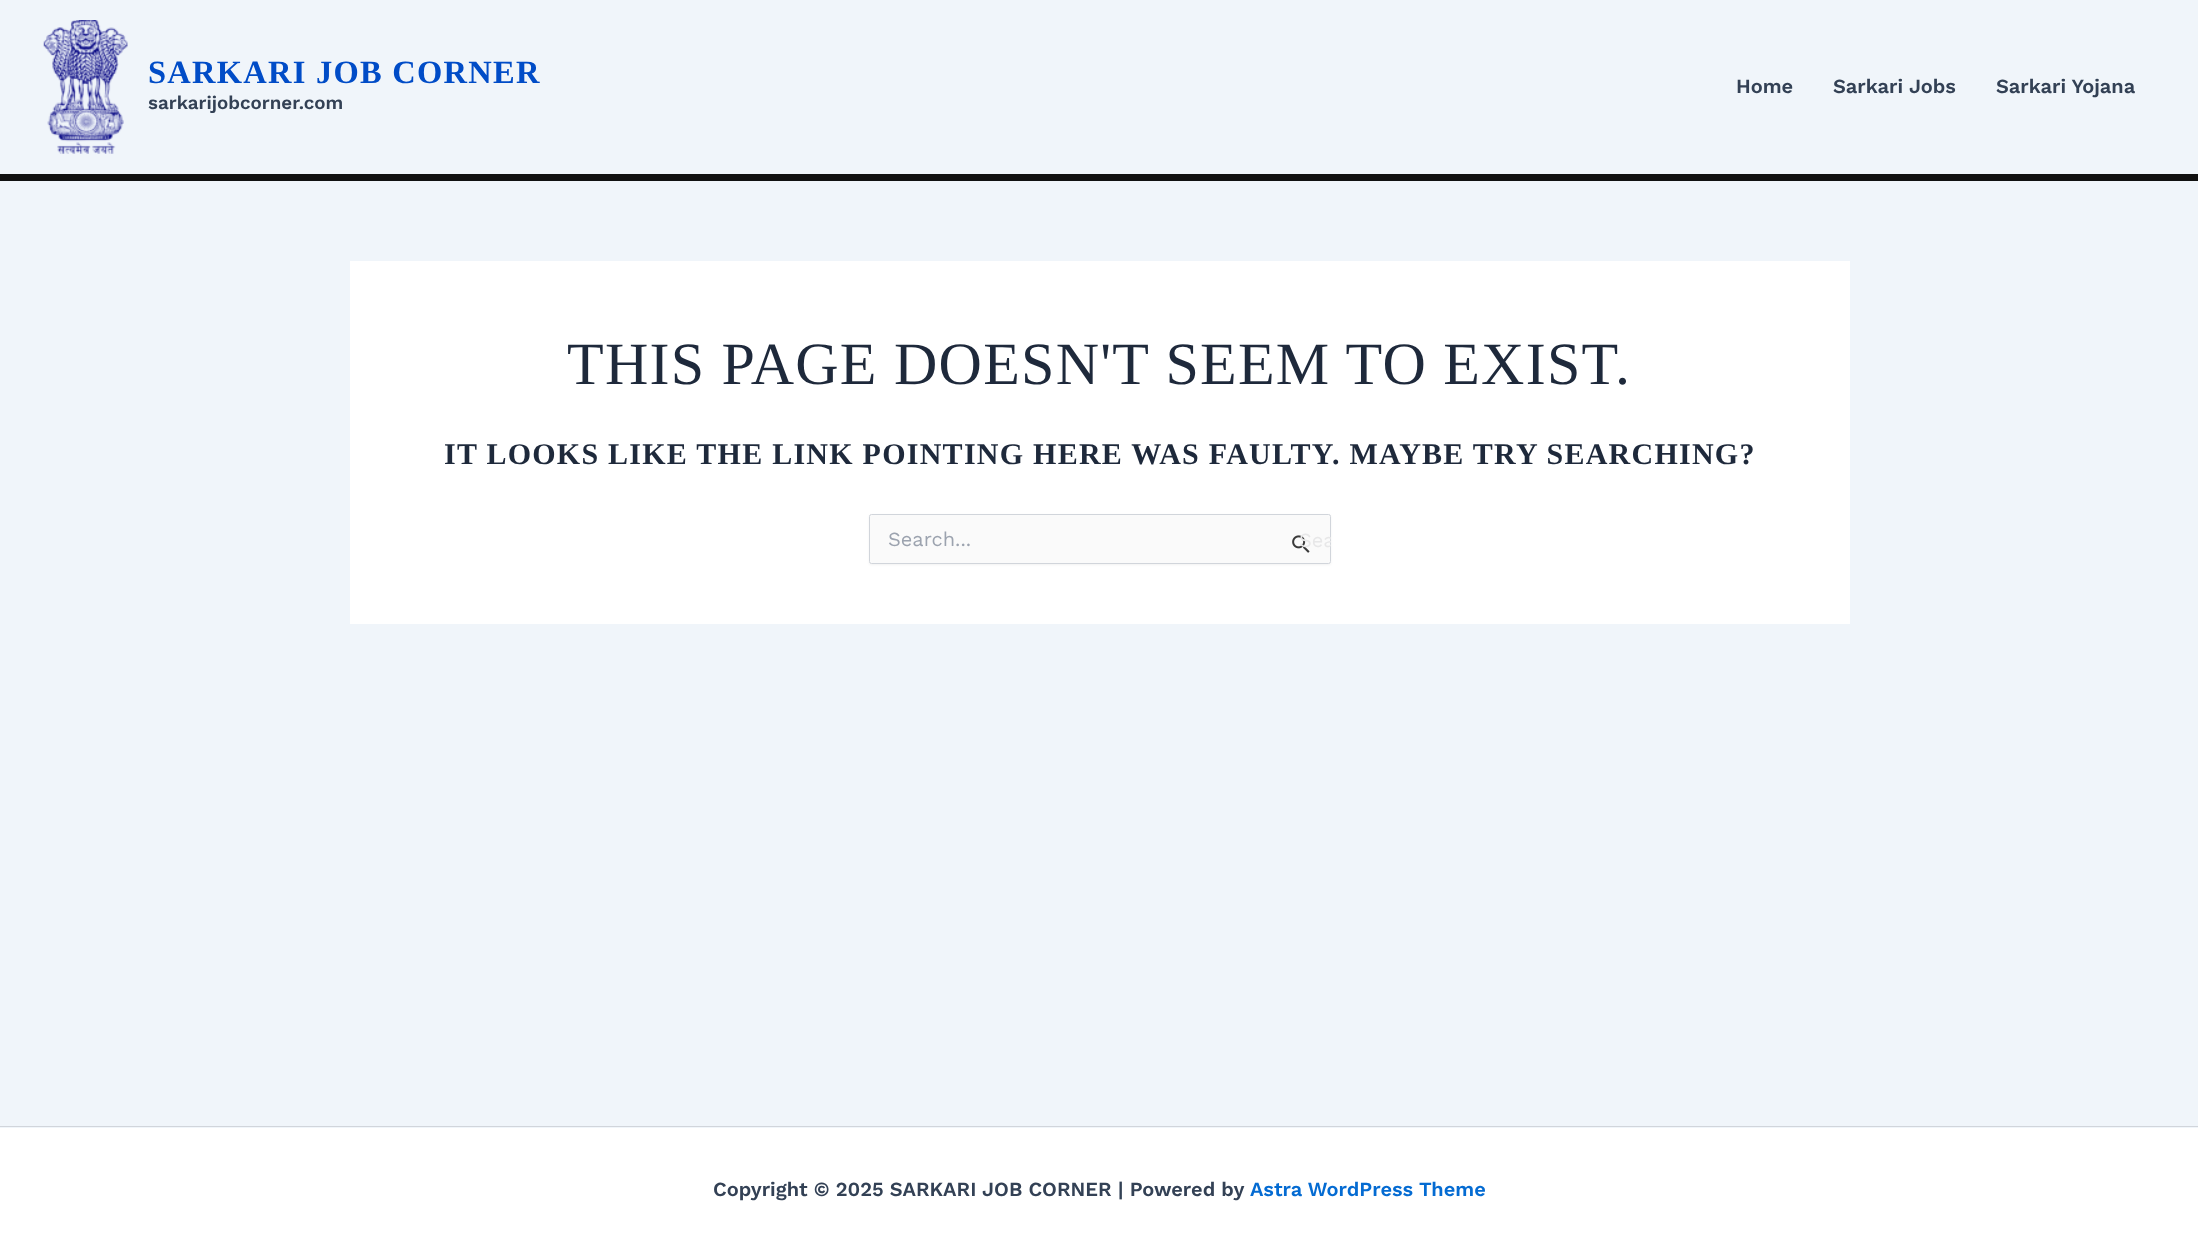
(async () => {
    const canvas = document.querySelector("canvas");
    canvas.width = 2198;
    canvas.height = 1252;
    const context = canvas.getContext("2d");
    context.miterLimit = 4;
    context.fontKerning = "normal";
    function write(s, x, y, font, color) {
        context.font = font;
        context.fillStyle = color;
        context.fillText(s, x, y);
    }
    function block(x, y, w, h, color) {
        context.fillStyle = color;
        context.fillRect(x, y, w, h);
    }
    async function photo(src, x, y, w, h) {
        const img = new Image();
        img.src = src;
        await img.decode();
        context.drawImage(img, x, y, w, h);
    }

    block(0, 0, 2198, 1252, "rgb(240, 245, 250)");
    block(0, 174, 2198, 7, "rgb(17, 17, 17)");
    await photo("media/1.png", 43, 20, 85, 134);
    context.letterSpacing = "1.25px";
    write("SARKARI JOB CORNER", 148, 83, "bold 32.5px Liberation Serif", "rgb(0, 76, 199)");
    context.letterSpacing = "0px";
    write("sarkarijobcorner.com", 148, 109, "600 18.75px Work Sans", "rgb(51, 65, 85)");
    write("Home", 1736, 93, "600 20px Work Sans", "rgb(51, 65, 85)");
    write("Sarkari Jobs", 1833, 93, "600 20px Work Sans", "rgb(51, 65, 85)");
    write("Sarkari Yojana", 1996, 93, "600 20px Work Sans", "rgb(51, 65, 85)");
    block(350, 261, 1500, 363, "rgb(255, 255, 255)");
    context.letterSpacing = "1.25px";
    write("THIS PAGE DOESN'T SEEM TO EXIST.", 567, 384, "60px Liberation Serif", "rgb(30, 41, 59)");
    write("IT LOOKS LIKE THE LINK POINTING HERE WAS FAULTY. MAYBE TRY SEARCHING?", 444, 464, "bold 30px Liberation Serif", "rgb(30, 41, 59)");
    context.fillStyle = "rgba(0, 0, 0, 0.05)";
    context.filter = "blur(1px)";
    context.beginPath();
    context.roundRect(869, 515, 462, 50, 2.5);
    context.fill();
    context.filter = "none";
    context.fillStyle = "rgb(250, 250, 250)";
    context.beginPath();
    context.roundRect(869.5, 514.5, 461, 49, 2);
    context.fill();
    context.strokeStyle = "rgb(209, 213, 219)";
    context.stroke();
    context.letterSpacing = "0px";
    write("Search...", 888, 546, "20px Work Sans", "rgb(156, 163, 175)");
    await photo("media/2.png", 1292, 535, 18, 18);
    context.save();
    context.beginPath();
    context.roundRect(1275, 514, 56, 52, 2.5);
    context.clip();
    write("Sea", 1299, 547, "20px Work Sans", "rgb(231, 231, 232)");
    context.restore();
    block(0, 1128, 2198, 124, "rgb(255, 255, 255)");
    block(0, 1126, 2198, 1, "rgb(209, 213, 219)");
    write("Copyright © 2025 SARKARI JOB CORNER | Powered by", 713, 1196, "600 20px Work Sans", "rgb(51, 65, 85)");
    write("Astra WordPress Theme", 1250, 1196, "600 20px Work Sans", "rgb(4, 107, 210)");
})();
